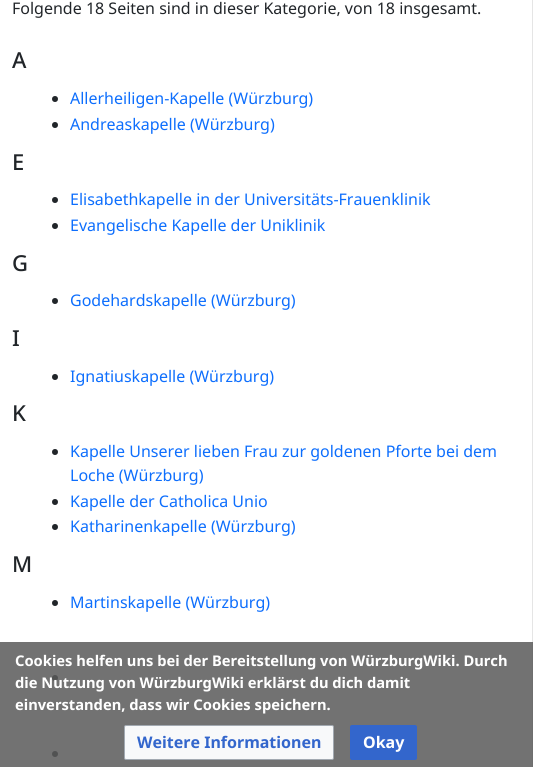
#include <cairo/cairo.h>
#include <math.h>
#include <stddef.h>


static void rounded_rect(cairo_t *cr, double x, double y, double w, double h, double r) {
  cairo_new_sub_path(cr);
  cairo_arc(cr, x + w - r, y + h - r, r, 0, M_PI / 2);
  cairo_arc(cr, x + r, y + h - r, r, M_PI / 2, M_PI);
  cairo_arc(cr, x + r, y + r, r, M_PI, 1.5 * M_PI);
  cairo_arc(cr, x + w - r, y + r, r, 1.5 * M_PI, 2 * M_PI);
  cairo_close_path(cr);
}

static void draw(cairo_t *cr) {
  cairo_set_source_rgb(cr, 1, 1, 1);
  cairo_paint(cr);
  cairo_set_source_rgb(cr, 229 / 255.0, 229 / 255.0, 229 / 255.0);
  cairo_rectangle(cr, 532, 0, 1, 767);
  cairo_fill(cr);
  cairo_set_source_rgb(cr, 33 / 255.0, 37 / 255.0, 41 / 255.0);
  cairo_arc(cr, 55, 99, 3, 0, 2 * M_PI);
  cairo_fill(cr);
  cairo_arc(cr, 55, 125, 3, 0, 2 * M_PI);
  cairo_fill(cr);
  cairo_arc(cr, 55, 200, 3, 0, 2 * M_PI);
  cairo_fill(cr);
  cairo_arc(cr, 55, 226, 3, 0, 2 * M_PI);
  cairo_fill(cr);
  cairo_arc(cr, 55, 301, 3, 0, 2 * M_PI);
  cairo_fill(cr);
  cairo_arc(cr, 55, 377, 3, 0, 2 * M_PI);
  cairo_fill(cr);
  cairo_arc(cr, 55, 452, 3, 0, 2 * M_PI);
  cairo_fill(cr);
  cairo_arc(cr, 55, 502, 3, 0, 2 * M_PI);
  cairo_fill(cr);
  cairo_arc(cr, 55, 527, 3, 0, 2 * M_PI);
  cairo_fill(cr);
  cairo_arc(cr, 55, 603, 3, 0, 2 * M_PI);
  cairo_fill(cr);
  cairo_arc(cr, 55, 678, 3, 0, 2 * M_PI);
  cairo_fill(cr);
  cairo_arc(cr, 55, 754, 3, 0, 2 * M_PI);
  cairo_fill(cr);
  cairo_set_source_rgba(cr, 90 / 255.0, 90 / 255.0, 90 / 255.0, 0.85);
  cairo_rectangle(cr, 0, 642, 533, 125);
  cairo_fill(cr);
  cairo_set_source_rgb(cr, 248 / 255.0, 249 / 255.0, 250 / 255.0);
  rounded_rect(cr, 124.5, 725.5, 209, 34, 1.5);
  cairo_fill_preserve(cr);
  cairo_set_source_rgb(cr, 162 / 255.0, 169 / 255.0, 177 / 255.0);
  cairo_set_line_width(cr, 1);
  cairo_stroke(cr);
  cairo_set_source_rgb(cr, 51 / 255.0, 102 / 255.0, 204 / 255.0);
  rounded_rect(cr, 350.5, 725.5, 66, 34, 1.5);
  cairo_fill_preserve(cr);
  cairo_stroke(cr);
  cairo_select_font_face(cr, "Noto Sans", CAIRO_FONT_SLANT_NORMAL, CAIRO_FONT_WEIGHT_NORMAL);
  cairo_set_font_size(cr, 16);
  cairo_set_source_rgb(cr, 33 / 255.0, 37 / 255.0, 41 / 255.0);
  cairo_move_to(cr, 12, 14);
  cairo_show_text(cr, "Folgende 18 Seiten sind in dieser Kategorie, von 18 insgesamt.");
  cairo_select_font_face(cr, "Noto Sans Medium", CAIRO_FONT_SLANT_NORMAL, CAIRO_FONT_WEIGHT_NORMAL);
  cairo_set_font_size(cr, 22);
  cairo_move_to(cr, 12, 68);
  cairo_show_text(cr, "A");
  cairo_select_font_face(cr, "Noto Sans", CAIRO_FONT_SLANT_NORMAL, CAIRO_FONT_WEIGHT_NORMAL);
  cairo_set_font_size(cr, 16);
  cairo_set_source_rgb(cr, 13 / 255.0, 110 / 255.0, 253 / 255.0);
  cairo_move_to(cr, 70, 104);
  cairo_show_text(cr, "Allerheiligen-Kapelle (Würzburg)");
  cairo_move_to(cr, 70, 130);
  cairo_show_text(cr, "Andreaskapelle (Würzburg)");
  cairo_select_font_face(cr, "Noto Sans Medium", CAIRO_FONT_SLANT_NORMAL, CAIRO_FONT_WEIGHT_NORMAL);
  cairo_set_font_size(cr, 22);
  cairo_set_source_rgb(cr, 33 / 255.0, 37 / 255.0, 41 / 255.0);
  cairo_move_to(cr, 12, 170);
  cairo_show_text(cr, "E");
  cairo_select_font_face(cr, "Noto Sans", CAIRO_FONT_SLANT_NORMAL, CAIRO_FONT_WEIGHT_NORMAL);
  cairo_set_font_size(cr, 16);
  cairo_set_source_rgb(cr, 13 / 255.0, 110 / 255.0, 253 / 255.0);
  cairo_move_to(cr, 70, 205);
  cairo_show_text(cr, "Elisabethkapelle in der Universitäts-Frauenklinik");
  cairo_move_to(cr, 70, 231);
  cairo_show_text(cr, "Evangelische Kapelle der Uniklinik");
  cairo_select_font_face(cr, "Noto Sans Medium", CAIRO_FONT_SLANT_NORMAL, CAIRO_FONT_WEIGHT_NORMAL);
  cairo_set_font_size(cr, 22);
  cairo_set_source_rgb(cr, 33 / 255.0, 37 / 255.0, 41 / 255.0);
  cairo_move_to(cr, 12, 271);
  cairo_show_text(cr, "G");
  cairo_select_font_face(cr, "Noto Sans", CAIRO_FONT_SLANT_NORMAL, CAIRO_FONT_WEIGHT_NORMAL);
  cairo_set_font_size(cr, 16);
  cairo_set_source_rgb(cr, 13 / 255.0, 110 / 255.0, 253 / 255.0);
  cairo_move_to(cr, 70, 306);
  cairo_show_text(cr, "Godehardskapelle (Würzburg)");
  cairo_select_font_face(cr, "Noto Sans Medium", CAIRO_FONT_SLANT_NORMAL, CAIRO_FONT_WEIGHT_NORMAL);
  cairo_set_font_size(cr, 22);
  cairo_set_source_rgb(cr, 33 / 255.0, 37 / 255.0, 41 / 255.0);
  cairo_move_to(cr, 12, 346);
  cairo_show_text(cr, "I");
  cairo_select_font_face(cr, "Noto Sans", CAIRO_FONT_SLANT_NORMAL, CAIRO_FONT_WEIGHT_NORMAL);
  cairo_set_font_size(cr, 16);
  cairo_set_source_rgb(cr, 13 / 255.0, 110 / 255.0, 253 / 255.0);
  cairo_move_to(cr, 70, 382);
  cairo_show_text(cr, "Ignatiuskapelle (Würzburg)");
  cairo_select_font_face(cr, "Noto Sans Medium", CAIRO_FONT_SLANT_NORMAL, CAIRO_FONT_WEIGHT_NORMAL);
  cairo_set_font_size(cr, 22);
  cairo_set_source_rgb(cr, 33 / 255.0, 37 / 255.0, 41 / 255.0);
  cairo_move_to(cr, 12, 421);
  cairo_show_text(cr, "K");
  cairo_select_font_face(cr, "Noto Sans", CAIRO_FONT_SLANT_NORMAL, CAIRO_FONT_WEIGHT_NORMAL);
  cairo_set_font_size(cr, 16);
  cairo_set_source_rgb(cr, 13 / 255.0, 110 / 255.0, 253 / 255.0);
  cairo_move_to(cr, 70, 457);
  cairo_show_text(cr, "Kapelle Unserer lieben Frau zur goldenen Pforte bei dem");
  cairo_move_to(cr, 70, 481);
  cairo_show_text(cr, "Loche (Würzburg)");
  cairo_move_to(cr, 70, 507);
  cairo_show_text(cr, "Kapelle der Catholica Unio");
  cairo_move_to(cr, 70, 532);
  cairo_show_text(cr, "Katharinenkapelle (Würzburg)");
  cairo_select_font_face(cr, "Noto Sans Medium", CAIRO_FONT_SLANT_NORMAL, CAIRO_FONT_WEIGHT_NORMAL);
  cairo_set_font_size(cr, 22);
  cairo_set_source_rgb(cr, 33 / 255.0, 37 / 255.0, 41 / 255.0);
  cairo_move_to(cr, 12, 572);
  cairo_show_text(cr, "M");
  cairo_select_font_face(cr, "Noto Sans", CAIRO_FONT_SLANT_NORMAL, CAIRO_FONT_WEIGHT_NORMAL);
  cairo_set_font_size(cr, 16);
  cairo_set_source_rgb(cr, 13 / 255.0, 110 / 255.0, 253 / 255.0);
  cairo_move_to(cr, 70, 608);
  cairo_show_text(cr, "Martinskapelle (Würzburg)");
  cairo_select_font_face(cr, "Noto Sans", CAIRO_FONT_SLANT_NORMAL, CAIRO_FONT_WEIGHT_BOLD);
  cairo_set_font_size(cr, 14.7);
  cairo_set_source_rgb(cr, 1, 1, 1);
  cairo_move_to(cr, 15, 666);
  cairo_show_text(cr, "Cookies helfen uns bei der Bereitstellung von WürzburgWiki. Durch");
  cairo_move_to(cr, 15, 688);
  cairo_show_text(cr, "die Nutzung von WürzburgWiki erklärst du dich damit");
  cairo_move_to(cr, 15, 710);
  cairo_show_text(cr, "einverstanden, dass wir Cookies speichern.");
  cairo_set_font_size(cr, 16);
  cairo_set_source_rgb(cr, 51 / 255.0, 102 / 255.0, 204 / 255.0);
  cairo_move_to(cr, 137, 748);
  cairo_show_text(cr, "Weitere Informationen");
  cairo_set_source_rgb(cr, 1, 1, 1);
  cairo_move_to(cr, 363, 748);
  cairo_show_text(cr, "Okay");
}

int main(void) {
  cairo_surface_t *surface = cairo_image_surface_create(CAIRO_FORMAT_RGB24, 533, 767);
  cairo_t *cr = cairo_create(surface);
  cairo_font_options_t *options = cairo_font_options_create();
  cairo_font_options_set_hint_metrics(options, CAIRO_HINT_METRICS_OFF);
  cairo_font_options_set_hint_style(options, CAIRO_HINT_STYLE_NONE);
  cairo_set_font_options(cr, options);
  cairo_set_miter_limit(cr, 4);
  draw(cr);
  cairo_surface_write_to_png(surface, "out.png");
  cairo_font_options_destroy(options);
  cairo_destroy(cr);
  cairo_surface_destroy(surface);
  return 0;
}
